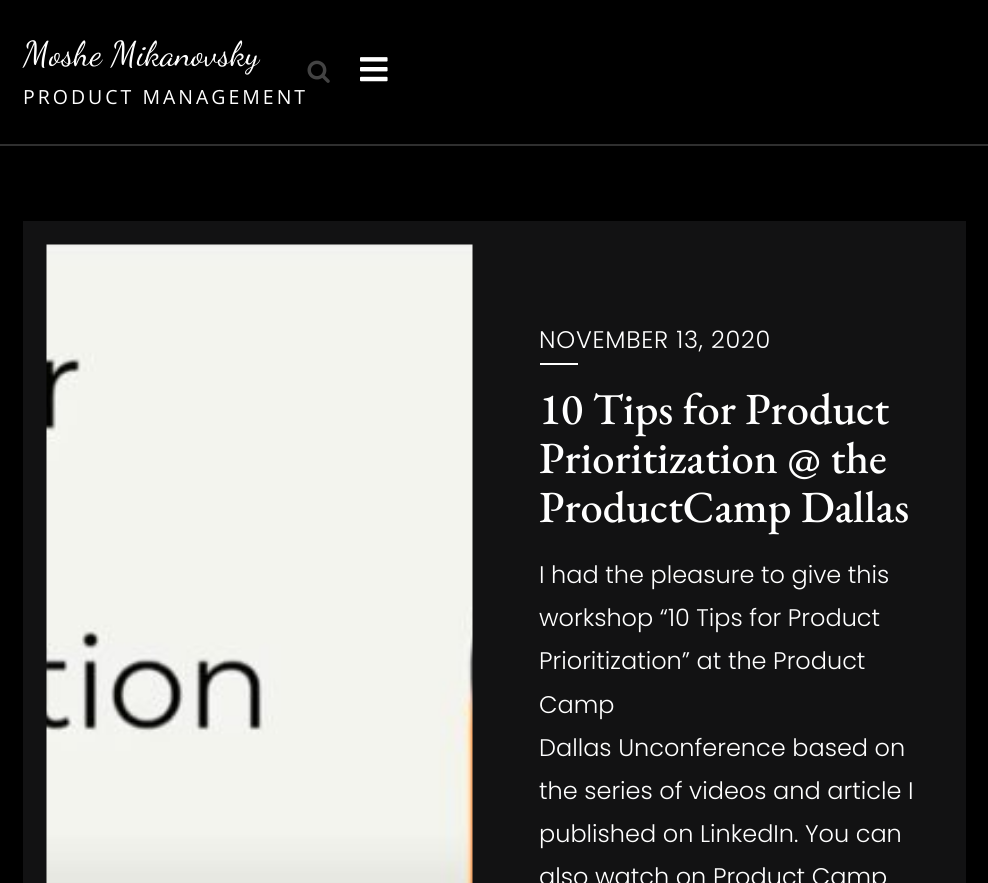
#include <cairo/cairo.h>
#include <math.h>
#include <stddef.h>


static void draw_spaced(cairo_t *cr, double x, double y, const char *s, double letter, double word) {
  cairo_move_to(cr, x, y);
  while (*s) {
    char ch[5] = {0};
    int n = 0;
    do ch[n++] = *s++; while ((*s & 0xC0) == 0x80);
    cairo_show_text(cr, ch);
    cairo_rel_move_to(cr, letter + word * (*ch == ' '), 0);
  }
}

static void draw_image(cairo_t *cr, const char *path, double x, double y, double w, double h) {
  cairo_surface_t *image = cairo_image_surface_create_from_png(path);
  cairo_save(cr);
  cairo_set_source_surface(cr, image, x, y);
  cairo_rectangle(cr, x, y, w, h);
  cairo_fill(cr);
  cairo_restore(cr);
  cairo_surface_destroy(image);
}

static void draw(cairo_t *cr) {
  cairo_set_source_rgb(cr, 0, 0, 0);
  cairo_paint(cr);
  cairo_set_source_rgb(cr, 47 / 255.0, 47 / 255.0, 47 / 255.0);
  cairo_rectangle(cr, 0, 144, 988, 2);
  cairo_fill(cr);
  draw_image(cr, "images/1.png", 307, 60, 23, 23);
  draw_image(cr, "images/2.png", 360, 57, 28, 25);
  cairo_set_source_rgb(cr, 18 / 255.0, 18 / 255.0, 19 / 255.0);
  cairo_rectangle(cr, 23, 221, 943, 662);
  cairo_fill(cr);
  draw_image(cr, "images/3.png", 46, 244, 427, 639);
  cairo_set_source_rgb(cr, 1, 1, 1);
  cairo_rectangle(cr, 540, 363, 38, 2);
  cairo_fill(cr);
  cairo_select_font_face(cr, "Dancing Script", CAIRO_FONT_SLANT_NORMAL, CAIRO_FONT_WEIGHT_NORMAL);
  cairo_set_font_size(cr, 34.5);
  cairo_move_to(cr, 23, 65);
  cairo_show_text(cr, "Moshe Mikanovsky");
  cairo_select_font_face(cr, "Open Sans", CAIRO_FONT_SLANT_NORMAL, CAIRO_FONT_WEIGHT_NORMAL);
  cairo_set_font_size(cr, 19.5);
  draw_spaced(cr, 23, 104, "PRODUCT MANAGEMENT", 3, 0);
  cairo_select_font_face(cr, "Poppins Light", CAIRO_FONT_SLANT_NORMAL, CAIRO_FONT_WEIGHT_NORMAL);
  cairo_set_font_size(cr, 24);
  draw_spaced(cr, 539, 348, "NOVEMBER 13, 2020", 0.75, 0);
  cairo_select_font_face(cr, "EB Garamond Medium", CAIRO_FONT_SLANT_NORMAL, CAIRO_FONT_WEIGHT_NORMAL);
  cairo_set_font_size(cr, 44.5);
  cairo_move_to(cr, 539, 424);
  cairo_show_text(cr, "10 Tips for Product");
  cairo_move_to(cr, 539, 473);
  cairo_show_text(cr, "Prioritization @ the");
  cairo_move_to(cr, 539, 522);
  cairo_show_text(cr, "ProductCamp Dallas");
  cairo_select_font_face(cr, "Poppins Light", CAIRO_FONT_SLANT_NORMAL, CAIRO_FONT_WEIGHT_NORMAL);
  cairo_set_font_size(cr, 24);
  cairo_move_to(cr, 539, 583);
  cairo_show_text(cr, "I had the pleasure to give this");
  cairo_move_to(cr, 539, 626);
  cairo_show_text(cr, "workshop “10 Tips for Product");
  cairo_move_to(cr, 539, 669);
  cairo_show_text(cr, "Prioritization” at the Product");
  cairo_move_to(cr, 539, 713);
  cairo_show_text(cr, "Camp");
  cairo_move_to(cr, 539, 756);
  cairo_show_text(cr, "Dallas Unconference based on");
  cairo_move_to(cr, 539, 799);
  cairo_show_text(cr, "the series of videos and article I");
  cairo_move_to(cr, 539, 842);
  cairo_show_text(cr, "published on LinkedIn. You can");
  cairo_move_to(cr, 539, 885);
  cairo_show_text(cr, "also watch on Product Camp");
}

int main(void) {
  cairo_surface_t *surface = cairo_image_surface_create(CAIRO_FORMAT_RGB24, 988, 883);
  cairo_t *cr = cairo_create(surface);
  cairo_font_options_t *options = cairo_font_options_create();
  cairo_font_options_set_hint_metrics(options, CAIRO_HINT_METRICS_OFF);
  cairo_font_options_set_hint_style(options, CAIRO_HINT_STYLE_NONE);
  cairo_set_font_options(cr, options);
  cairo_set_miter_limit(cr, 4);
  draw(cr);
  cairo_surface_write_to_png(surface, "out.png");
  cairo_font_options_destroy(options);
  cairo_destroy(cr);
  cairo_surface_destroy(surface);
  return 0;
}
